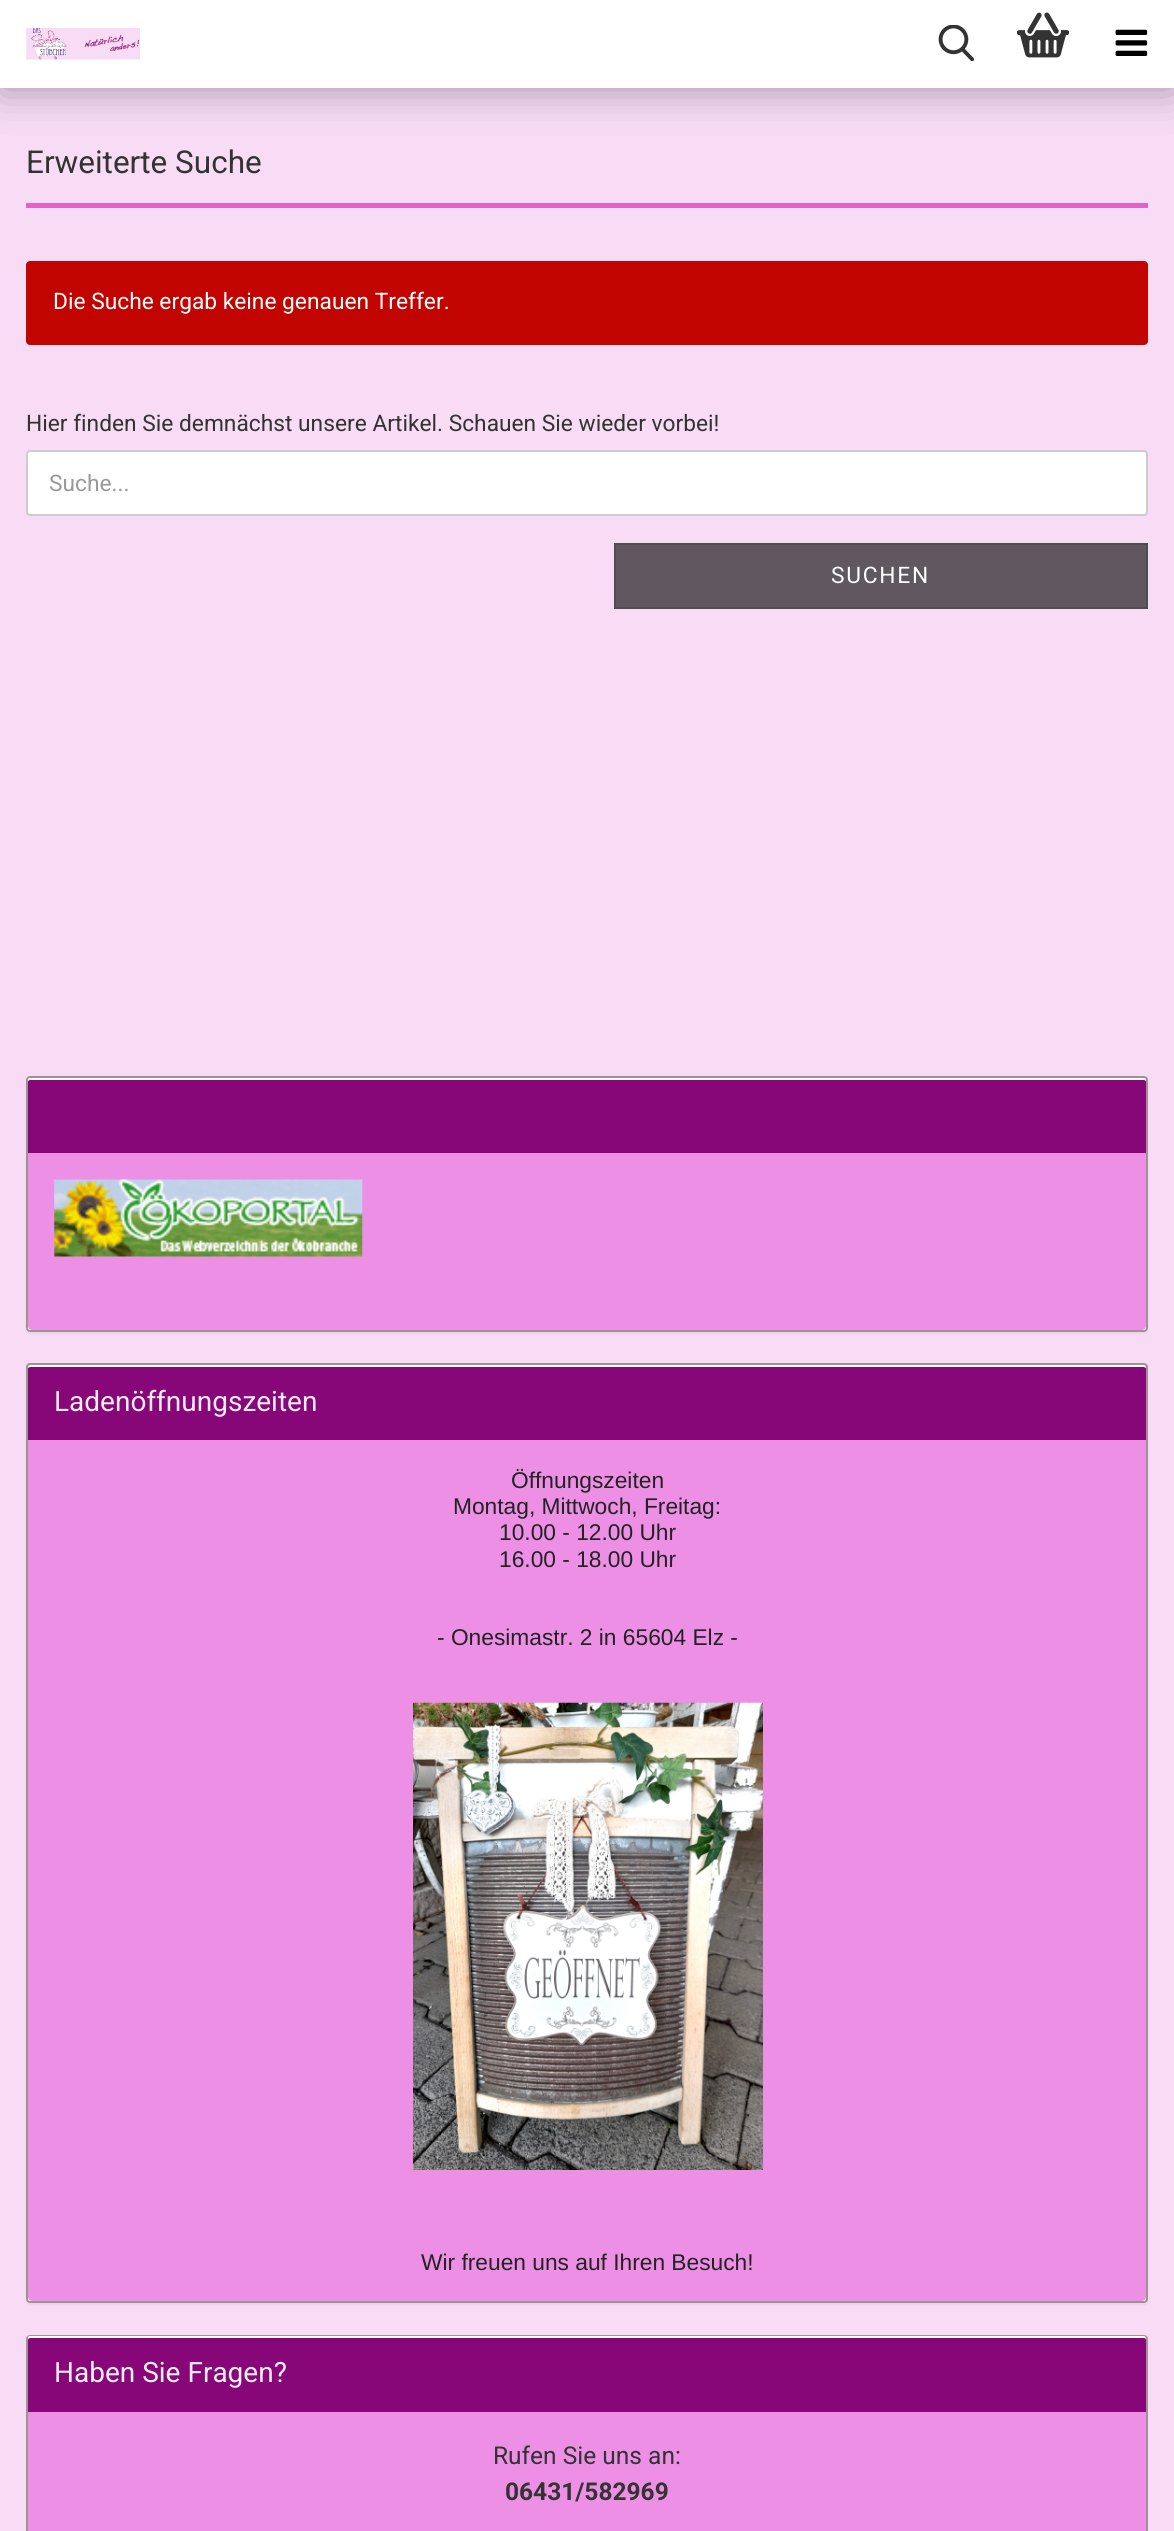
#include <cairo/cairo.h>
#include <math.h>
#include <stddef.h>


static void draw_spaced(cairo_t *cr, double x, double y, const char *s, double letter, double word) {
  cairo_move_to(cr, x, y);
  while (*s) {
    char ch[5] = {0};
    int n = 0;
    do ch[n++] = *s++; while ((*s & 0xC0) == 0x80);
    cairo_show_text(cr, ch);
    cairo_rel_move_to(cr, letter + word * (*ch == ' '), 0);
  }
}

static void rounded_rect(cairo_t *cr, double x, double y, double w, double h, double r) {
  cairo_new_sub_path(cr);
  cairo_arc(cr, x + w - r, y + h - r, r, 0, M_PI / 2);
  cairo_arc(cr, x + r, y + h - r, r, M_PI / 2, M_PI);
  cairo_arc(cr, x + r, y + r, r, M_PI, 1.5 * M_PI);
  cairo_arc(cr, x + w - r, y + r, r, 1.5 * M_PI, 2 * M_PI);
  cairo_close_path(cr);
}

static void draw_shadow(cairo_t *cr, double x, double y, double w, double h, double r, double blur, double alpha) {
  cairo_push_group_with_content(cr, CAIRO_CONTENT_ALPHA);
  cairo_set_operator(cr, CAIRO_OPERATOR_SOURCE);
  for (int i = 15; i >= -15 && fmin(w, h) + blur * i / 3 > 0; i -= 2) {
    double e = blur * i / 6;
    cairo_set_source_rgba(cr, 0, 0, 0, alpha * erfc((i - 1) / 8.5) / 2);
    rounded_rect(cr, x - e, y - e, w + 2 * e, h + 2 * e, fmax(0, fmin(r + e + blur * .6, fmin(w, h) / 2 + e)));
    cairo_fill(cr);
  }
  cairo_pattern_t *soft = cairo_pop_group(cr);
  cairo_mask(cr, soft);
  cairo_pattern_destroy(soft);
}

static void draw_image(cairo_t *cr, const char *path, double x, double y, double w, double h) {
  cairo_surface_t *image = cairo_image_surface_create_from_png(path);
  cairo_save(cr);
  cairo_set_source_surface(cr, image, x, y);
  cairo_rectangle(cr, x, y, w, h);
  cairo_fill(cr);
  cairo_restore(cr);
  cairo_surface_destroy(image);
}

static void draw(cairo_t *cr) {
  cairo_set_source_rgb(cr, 248 / 255.0, 220 / 255.0, 246 / 255.0);
  cairo_paint(cr);
  cairo_set_source_rgb(cr, 0, 0, 0);
  draw_shadow(cr, 0, 0, 1174, 88, 0, 22, 0.35);
  cairo_set_source_rgb(cr, 1, 1, 1);
  cairo_rectangle(cr, 0, 0, 1174, 88);
  cairo_fill(cr);
  draw_image(cr, "images/1.png", 26, 28, 114, 32);
  draw_image(cr, "images/2.png", 938, 25, 37, 36);
  draw_image(cr, "images/3.png", 1017, 12, 52, 46);
  draw_image(cr, "images/4.png", 1115, 29, 33, 27);
  cairo_set_source_rgb(cr, 225 / 255.0, 99 / 255.0, 199 / 255.0);
  cairo_rectangle(cr, 26, 203, 1122, 5);
  cairo_fill(cr);
  cairo_set_source_rgb(cr, 194 / 255.0, 4 / 255.0, 0);
  rounded_rect(cr, 26, 261, 1122, 84, 4);
  cairo_fill(cr);
  cairo_set_source_rgb(cr, 1, 1, 1);
  rounded_rect(cr, 27, 451, 1120, 64, 3);
  cairo_fill_preserve(cr);
  cairo_set_source_rgb(cr, 204 / 255.0, 204 / 255.0, 204 / 255.0);
  cairo_stroke(cr);
  cairo_set_source_rgb(cr, 96 / 255.0, 87 / 255.0, 95 / 255.0);
  cairo_rectangle(cr, 615, 544, 532, 64);
  cairo_fill_preserve(cr);
  cairo_set_source_rgb(cr, 83 / 255.0, 75 / 255.0, 82 / 255.0);
  cairo_stroke(cr);
  cairo_set_source_rgb(cr, 0, 0, 0);
  draw_shadow(cr, 26, 1078, 1122, 256, 4, 1, 0.05);
  cairo_set_source_rgb(cr, 1, 1, 1);
  rounded_rect(cr, 27, 1077, 1120, 254, 3);
  cairo_fill_preserve(cr);
  cairo_set_source_rgb(cr, 159 / 255.0, 146 / 255.0, 146 / 255.0);
  cairo_stroke(cr);
  cairo_set_source_rgb(cr, 136 / 255.0, 7 / 255.0, 120 / 255.0);
  cairo_new_path(cr);
  cairo_move_to(cr, 30, 1078);
  cairo_line_to(cr, 1144, 1078);
  cairo_curve_to(cr, 1145, 1078, 1146, 1079, 1146, 1080);
  cairo_line_to(cr, 1146, 1153);
  cairo_line_to(cr, 28, 1153);
  cairo_line_to(cr, 28, 1080);
  cairo_curve_to(cr, 28, 1079, 29, 1078, 30, 1078);
  cairo_close_path(cr);
  cairo_fill(cr);
  cairo_set_source_rgb(cr, 1, 1, 1);
  cairo_new_path(cr);
  cairo_move_to(cr, 30, 1080);
  cairo_line_to(cr, 1144, 1080);
  cairo_curve_to(cr, 1145, 1080, 1146, 1081, 1146, 1082);
  cairo_curve_to(cr, 1146, 1080, 1146, 1078, 1144, 1078);
  cairo_line_to(cr, 29, 1078);
  cairo_line_to(cr, 28, 1079);
  cairo_line_to(cr, 28, 1082);
  cairo_curve_to(cr, 28, 1081, 29, 1080, 30, 1080);
  cairo_close_path(cr);
  cairo_fill(cr);
  cairo_set_source_rgb(cr, 237 / 255.0, 143 / 255.0, 229 / 255.0);
  cairo_new_path(cr);
  cairo_move_to(cr, 28, 1153);
  cairo_line_to(cr, 1146, 1153);
  cairo_line_to(cr, 1146, 1326);
  cairo_curve_to(cr, 1146, 1328, 1144, 1330, 1142, 1330);
  cairo_line_to(cr, 32, 1330);
  cairo_curve_to(cr, 30, 1330, 28, 1328, 28, 1326);
  cairo_close_path(cr);
  cairo_fill(cr);
  draw_image(cr, "images/5.png", 54, 1179, 309, 78);
  cairo_set_source_rgb(cr, 0, 0, 0);
  draw_shadow(cr, 26, 1365, 1122, 940, 4, 1, 0.05);
  cairo_set_source_rgb(cr, 1, 1, 1);
  rounded_rect(cr, 27, 1364, 1120, 938, 3);
  cairo_fill_preserve(cr);
  cairo_set_source_rgb(cr, 159 / 255.0, 146 / 255.0, 146 / 255.0);
  cairo_stroke(cr);
  cairo_set_source_rgb(cr, 136 / 255.0, 7 / 255.0, 120 / 255.0);
  cairo_new_path(cr);
  cairo_move_to(cr, 30, 1365);
  cairo_line_to(cr, 1144, 1365);
  cairo_curve_to(cr, 1145, 1365, 1146, 1366, 1146, 1367);
  cairo_line_to(cr, 1146, 1440);
  cairo_line_to(cr, 28, 1440);
  cairo_line_to(cr, 28, 1367);
  cairo_curve_to(cr, 28, 1366, 29, 1365, 30, 1365);
  cairo_close_path(cr);
  cairo_fill(cr);
  cairo_set_source_rgb(cr, 1, 1, 1);
  cairo_new_path(cr);
  cairo_move_to(cr, 30, 1367);
  cairo_line_to(cr, 1144, 1367);
  cairo_line_to(cr, 1146, 1368);
  cairo_line_to(cr, 1146, 1367);
  cairo_curve_to(cr, 1146, 1366, 1145, 1365, 1144, 1365);
  cairo_line_to(cr, 30, 1365);
  cairo_curve_to(cr, 29, 1365, 28, 1366, 28, 1367);
  cairo_line_to(cr, 28, 1368);
  cairo_close_path(cr);
  cairo_fill(cr);
  cairo_set_source_rgb(cr, 237 / 255.0, 143 / 255.0, 229 / 255.0);
  cairo_new_path(cr);
  cairo_move_to(cr, 28, 1440);
  cairo_line_to(cr, 1146, 1440);
  cairo_line_to(cr, 1146, 2297);
  cairo_curve_to(cr, 1146, 2299, 1144, 2301, 1142, 2301);
  cairo_line_to(cr, 32, 2301);
  cairo_curve_to(cr, 30, 2301, 28, 2299, 28, 2297);
  cairo_close_path(cr);
  cairo_fill(cr);
  draw_image(cr, "images/6.png", 413, 1702, 350, 468);
  rounded_rect(cr, 27, 2336, 1120, 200, 3);
  cairo_set_source_rgb(cr, 159 / 255.0, 146 / 255.0, 146 / 255.0);
  cairo_stroke(cr);
  cairo_set_source_rgb(cr, 136 / 255.0, 7 / 255.0, 120 / 255.0);
  cairo_new_path(cr);
  cairo_move_to(cr, 30, 2336);
  cairo_line_to(cr, 1144, 2336);
  cairo_curve_to(cr, 1145, 2336, 1146, 2337, 1146, 2338);
  cairo_line_to(cr, 1146, 2412);
  cairo_line_to(cr, 28, 2412);
  cairo_line_to(cr, 28, 2338);
  cairo_curve_to(cr, 28, 2337, 29, 2336, 30, 2336);
  cairo_close_path(cr);
  cairo_fill(cr);
  cairo_set_source_rgb(cr, 1, 1, 1);
  cairo_new_path(cr);
  cairo_move_to(cr, 30, 2338);
  cairo_line_to(cr, 1144, 2338);
  cairo_curve_to(cr, 1145, 2338, 1146, 2339, 1146, 2340);
  cairo_curve_to(cr, 1146, 2338, 1146, 2336, 1144, 2336);
  cairo_line_to(cr, 29, 2336);
  cairo_line_to(cr, 28, 2337);
  cairo_line_to(cr, 28, 2340);
  cairo_curve_to(cr, 28, 2339, 29, 2338, 30, 2338);
  cairo_close_path(cr);
  cairo_fill(cr);
  cairo_set_source_rgb(cr, 237 / 255.0, 143 / 255.0, 229 / 255.0);
  cairo_rectangle(cr, 28, 2412, 1118, 119);
  cairo_fill(cr);
  cairo_select_font_face(cr, "Roboto", CAIRO_FONT_SLANT_NORMAL, CAIRO_FONT_WEIGHT_NORMAL);
  cairo_set_font_size(cr, 31.5);
  cairo_set_source_rgb(cr, 51 / 255.0, 51 / 255.0, 51 / 255.0);
  cairo_move_to(cr, 26, 173);
  cairo_show_text(cr, "Erweiterte Suche");
  cairo_set_font_size(cr, 22.75);
  cairo_set_source_rgb(cr, 1, 1, 1);
  cairo_move_to(cr, 53, 309);
  cairo_show_text(cr, "Die Suche ergab keine genauen Treffer.");
  cairo_set_source_rgb(cr, 51 / 255.0, 51 / 255.0, 51 / 255.0);
  cairo_move_to(cr, 26, 431);
  cairo_show_text(cr, "Hier finden Sie demnächst unsere Artikel. Schauen Sie wieder vorbei!");
  cairo_set_source_rgb(cr, 153 / 255.0, 153 / 255.0, 153 / 255.0);
  cairo_move_to(cr, 49, 491);
  cairo_show_text(cr, "Suche...");
  cairo_set_source_rgb(cr, 1, 1, 1);
  draw_spaced(cr, 831, 583, "SUCHEN", 1.75, 0);
  cairo_set_font_size(cr, 28);
  cairo_set_source_rgb(cr, 244 / 255.0, 235 / 255.0, 243 / 255.0);
  cairo_move_to(cr, 54, 1411);
  cairo_show_text(cr, "Ladenöffnungszeiten");
  cairo_select_font_face(cr, "Liberation Sans", CAIRO_FONT_SLANT_NORMAL, CAIRO_FONT_WEIGHT_NORMAL);
  cairo_set_font_size(cr, 22.75);
  cairo_set_source_rgb(cr, 34 / 255.0, 34 / 255.0, 34 / 255.0);
  cairo_move_to(cr, 511, 1488);
  cairo_show_text(cr, "Öffnungszeiten");
  cairo_move_to(cr, 453, 1514);
  cairo_show_text(cr, "Montag, Mittwoch, Freitag:");
  cairo_move_to(cr, 499, 1540);
  cairo_show_text(cr, "10.00 - 12.00 Uhr");
  cairo_move_to(cr, 499, 1567);
  cairo_show_text(cr, "16.00 - 18.00 Uhr");
  cairo_move_to(cr, 437, 1645);
  cairo_show_text(cr, "- Onesimastr. 2 in 65604 Elz -");
  cairo_move_to(cr, 421, 2270);
  cairo_show_text(cr, "Wir freuen uns auf Ihren Besuch!");
  cairo_select_font_face(cr, "Roboto", CAIRO_FONT_SLANT_NORMAL, CAIRO_FONT_WEIGHT_NORMAL);
  cairo_set_font_size(cr, 28);
  cairo_set_source_rgb(cr, 244 / 255.0, 235 / 255.0, 243 / 255.0);
  cairo_move_to(cr, 54, 2382);
  cairo_show_text(cr, "Haben Sie Fragen?");
  cairo_set_font_size(cr, 24.5);
  cairo_set_source_rgb(cr, 51 / 255.0, 51 / 255.0, 51 / 255.0);
  cairo_move_to(cr, 493, 2464);
  cairo_show_text(cr, "Rufen Sie uns an:");
  cairo_select_font_face(cr, "Roboto", CAIRO_FONT_SLANT_NORMAL, CAIRO_FONT_WEIGHT_BOLD);
  cairo_move_to(cr, 505, 2500);
  cairo_show_text(cr, "06431/582969");
}

int main(void) {
  cairo_surface_t *surface = cairo_image_surface_create(CAIRO_FORMAT_RGB24, 1174, 2531);
  cairo_t *cr = cairo_create(surface);
  cairo_font_options_t *options = cairo_font_options_create();
  cairo_font_options_set_hint_metrics(options, CAIRO_HINT_METRICS_OFF);
  cairo_font_options_set_hint_style(options, CAIRO_HINT_STYLE_NONE);
  cairo_set_font_options(cr, options);
  cairo_set_miter_limit(cr, 4);
  draw(cr);
  cairo_surface_write_to_png(surface, "out.png");
  cairo_font_options_destroy(options);
  cairo_destroy(cr);
  cairo_surface_destroy(surface);
  return 0;
}
